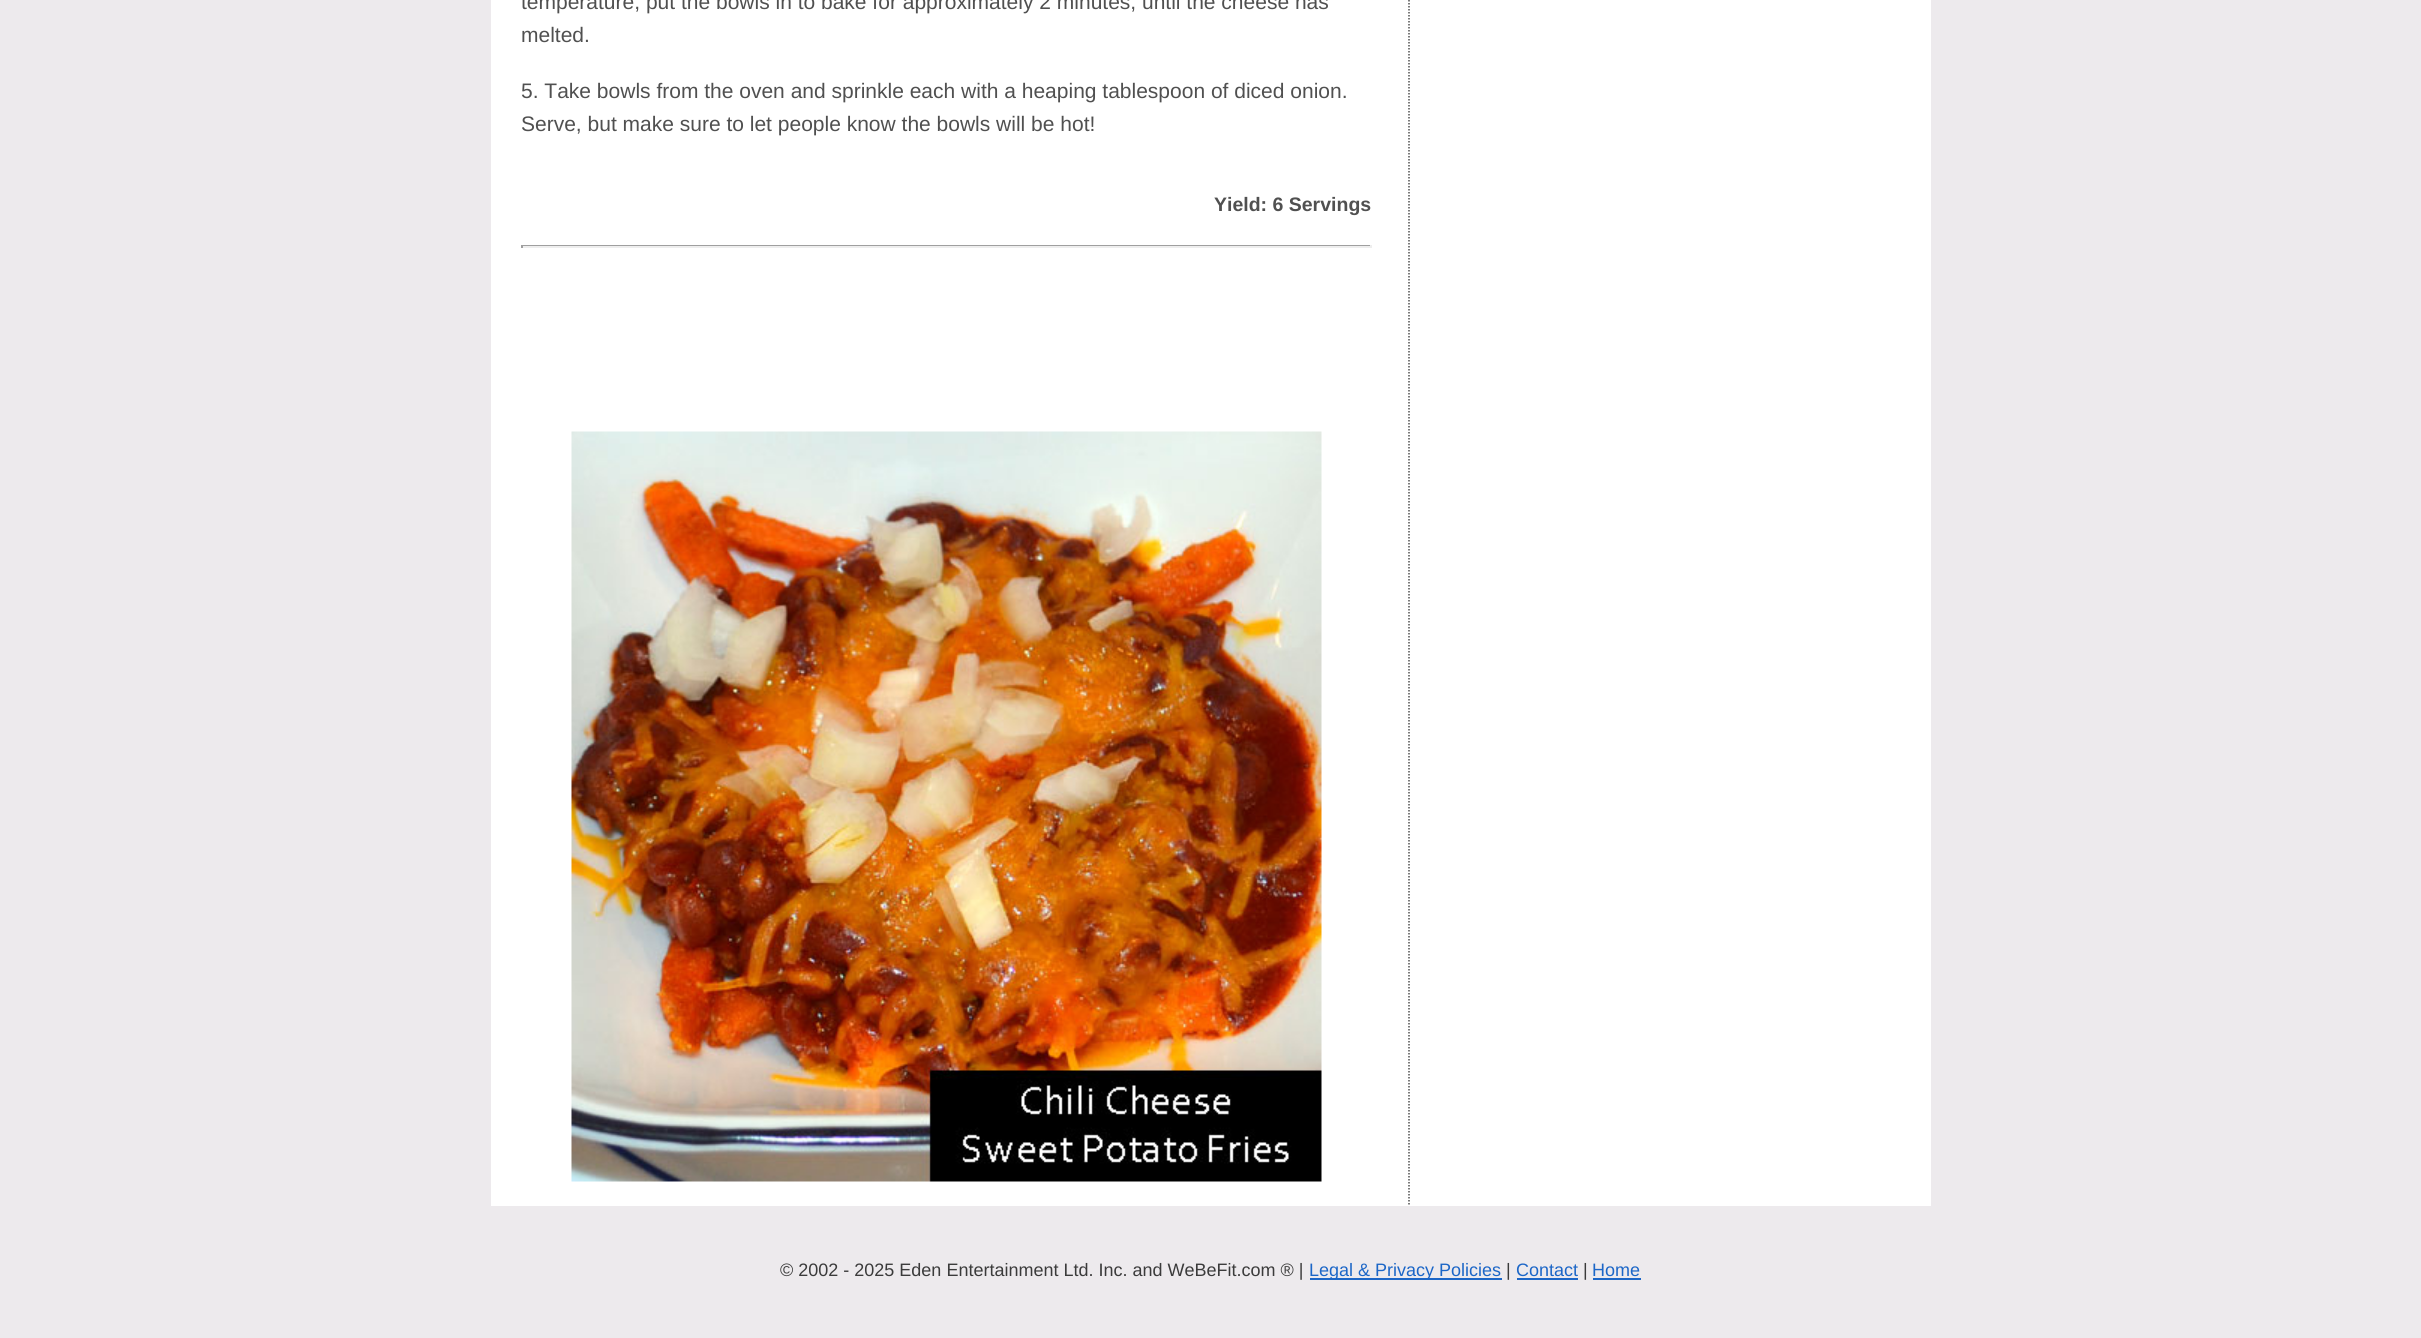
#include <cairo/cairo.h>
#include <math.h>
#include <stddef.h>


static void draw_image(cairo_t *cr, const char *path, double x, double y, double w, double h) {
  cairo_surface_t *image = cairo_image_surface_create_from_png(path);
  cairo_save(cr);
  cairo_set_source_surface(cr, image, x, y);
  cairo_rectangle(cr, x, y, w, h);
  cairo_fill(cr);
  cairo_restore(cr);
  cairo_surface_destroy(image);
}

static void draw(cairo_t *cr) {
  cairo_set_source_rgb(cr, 237 / 255.0, 234 / 255.0, 237 / 255.0);
  cairo_paint(cr);
  cairo_set_source_rgb(cr, 1, 1, 1);
  cairo_rectangle(cr, 491, 0, 1440, 1206);
  cairo_fill(cr);
  cairo_new_path(cr);
  cairo_move_to(cr, 1409, -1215);
  cairo_line_to(cr, 1409, 1206);
  cairo_set_source_rgb(cr, 80 / 255.0, 80 / 255.0, 80 / 255.0);
  cairo_set_line_width(cr, 1.5);
  cairo_set_dash(cr, (double[]){1.5, 1.5}, 2, 0);
  cairo_stroke(cr);
  cairo_set_source_rgb(cr, 159 / 255.0, 159 / 255.0, 159 / 255.0);
  cairo_rectangle(cr, 521, 245, 850, 1);
  cairo_fill(cr);
  cairo_set_source_rgb(cr, 238 / 255.0, 238 / 255.0, 238 / 255.0);
  cairo_rectangle(cr, 1370, 245, 2, 3);
  cairo_fill(cr);
  cairo_rectangle(cr, 521, 246, 850, 2);
  cairo_fill(cr);
  cairo_set_source_rgb(cr, 159 / 255.0, 159 / 255.0, 159 / 255.0);
  cairo_rectangle(cr, 521, 245, 2, 3);
  cairo_fill(cr);
  draw_image(cr, "images/1.png", 571, 431, 751, 751);
  cairo_set_source_rgb(cr, 28 / 255.0, 102 / 255.0, 199 / 255.0);
  cairo_rectangle(cr, 1310, 1278, 192, 2);
  cairo_fill(cr);
  cairo_rectangle(cr, 1517, 1278, 61, 2);
  cairo_fill(cr);
  cairo_rectangle(cr, 1593, 1278, 48, 2);
  cairo_fill(cr);
  cairo_select_font_face(cr, "Liberation Sans", CAIRO_FONT_SLANT_NORMAL, CAIRO_FONT_WEIGHT_NORMAL);
  cairo_set_font_size(cr, 21);
  cairo_set_source_rgb(cr, 80 / 255.0, 80 / 255.0, 80 / 255.0);
  cairo_move_to(cr, 521, 9);
  cairo_show_text(cr, "temperature, put the bowls in to bake for approximately 2 minutes, until the cheese has");
  cairo_move_to(cr, 521, 42);
  cairo_show_text(cr, "melted.");
  cairo_move_to(cr, 521, 98);
  cairo_show_text(cr, "5. Take bowls from the oven and sprinkle each with a heaping tablespoon of diced onion.");
  cairo_move_to(cr, 521, 131);
  cairo_show_text(cr, "Serve, but make sure to let people know the bowls will be hot!");
  cairo_select_font_face(cr, "Liberation Sans", CAIRO_FONT_SLANT_NORMAL, CAIRO_FONT_WEIGHT_BOLD);
  cairo_set_font_size(cr, 19.5);
  cairo_move_to(cr, 1214, 211);
  cairo_show_text(cr, "Yield: 6 Servings");
  cairo_select_font_face(cr, "Liberation Sans", CAIRO_FONT_SLANT_NORMAL, CAIRO_FONT_WEIGHT_NORMAL);
  cairo_set_font_size(cr, 18);
  cairo_set_source_rgb(cr, 59 / 255.0, 59 / 255.0, 59 / 255.0);
  cairo_move_to(cr, 780, 1276);
  cairo_show_text(cr, "© 2002 - 2025 Eden Entertainment Ltd. Inc. and WeBeFit.com ® |");
  cairo_set_source_rgb(cr, 28 / 255.0, 102 / 255.0, 199 / 255.0);
  cairo_move_to(cr, 1309, 1276);
  cairo_show_text(cr, "Legal & Privacy Policies");
  cairo_set_source_rgb(cr, 59 / 255.0, 59 / 255.0, 59 / 255.0);
  cairo_move_to(cr, 1506, 1276);
  cairo_show_text(cr, "|");
  cairo_set_source_rgb(cr, 28 / 255.0, 102 / 255.0, 199 / 255.0);
  cairo_move_to(cr, 1516, 1276);
  cairo_show_text(cr, "Contact");
  cairo_set_source_rgb(cr, 59 / 255.0, 59 / 255.0, 59 / 255.0);
  cairo_move_to(cr, 1583, 1276);
  cairo_show_text(cr, "|");
  cairo_set_source_rgb(cr, 28 / 255.0, 102 / 255.0, 199 / 255.0);
  cairo_move_to(cr, 1592, 1276);
  cairo_show_text(cr, "Home");
}

int main(void) {
  cairo_surface_t *surface = cairo_image_surface_create(CAIRO_FORMAT_RGB24, 2421, 1338);
  cairo_t *cr = cairo_create(surface);
  cairo_font_options_t *options = cairo_font_options_create();
  cairo_font_options_set_hint_metrics(options, CAIRO_HINT_METRICS_OFF);
  cairo_font_options_set_hint_style(options, CAIRO_HINT_STYLE_NONE);
  cairo_set_font_options(cr, options);
  cairo_set_miter_limit(cr, 4);
  draw(cr);
  cairo_surface_write_to_png(surface, "out.png");
  cairo_font_options_destroy(options);
  cairo_destroy(cr);
  cairo_surface_destroy(surface);
  return 0;
}
